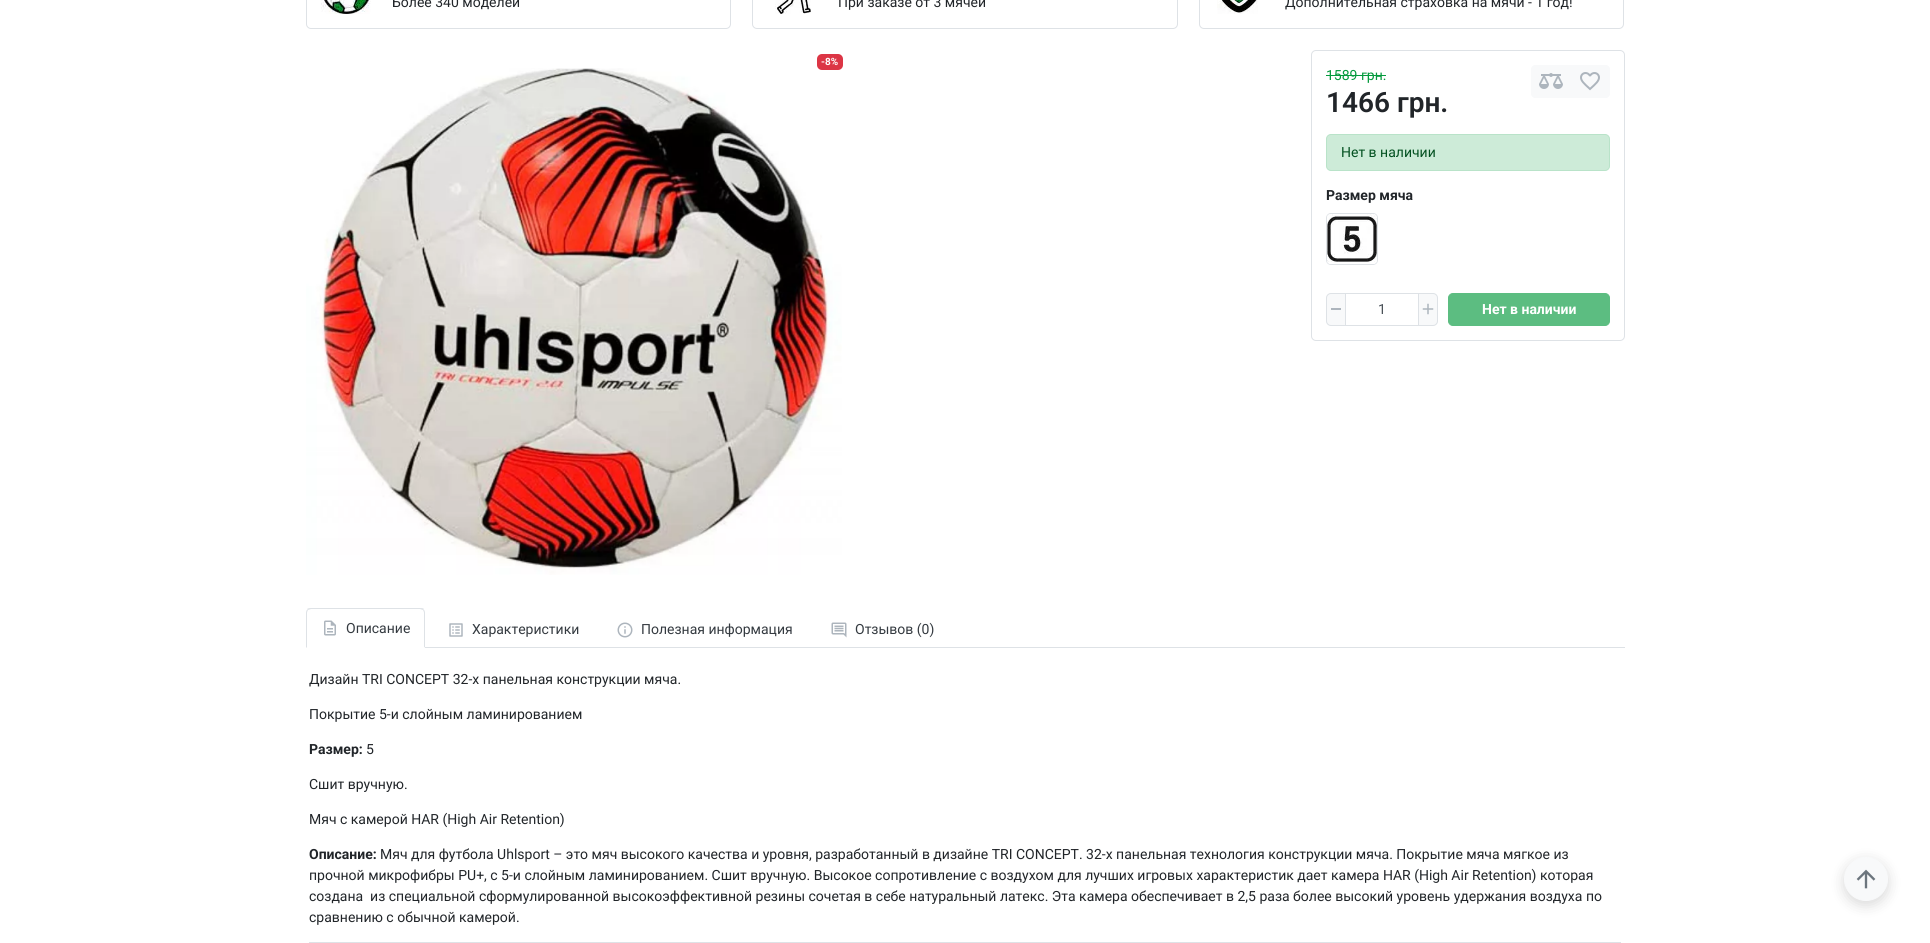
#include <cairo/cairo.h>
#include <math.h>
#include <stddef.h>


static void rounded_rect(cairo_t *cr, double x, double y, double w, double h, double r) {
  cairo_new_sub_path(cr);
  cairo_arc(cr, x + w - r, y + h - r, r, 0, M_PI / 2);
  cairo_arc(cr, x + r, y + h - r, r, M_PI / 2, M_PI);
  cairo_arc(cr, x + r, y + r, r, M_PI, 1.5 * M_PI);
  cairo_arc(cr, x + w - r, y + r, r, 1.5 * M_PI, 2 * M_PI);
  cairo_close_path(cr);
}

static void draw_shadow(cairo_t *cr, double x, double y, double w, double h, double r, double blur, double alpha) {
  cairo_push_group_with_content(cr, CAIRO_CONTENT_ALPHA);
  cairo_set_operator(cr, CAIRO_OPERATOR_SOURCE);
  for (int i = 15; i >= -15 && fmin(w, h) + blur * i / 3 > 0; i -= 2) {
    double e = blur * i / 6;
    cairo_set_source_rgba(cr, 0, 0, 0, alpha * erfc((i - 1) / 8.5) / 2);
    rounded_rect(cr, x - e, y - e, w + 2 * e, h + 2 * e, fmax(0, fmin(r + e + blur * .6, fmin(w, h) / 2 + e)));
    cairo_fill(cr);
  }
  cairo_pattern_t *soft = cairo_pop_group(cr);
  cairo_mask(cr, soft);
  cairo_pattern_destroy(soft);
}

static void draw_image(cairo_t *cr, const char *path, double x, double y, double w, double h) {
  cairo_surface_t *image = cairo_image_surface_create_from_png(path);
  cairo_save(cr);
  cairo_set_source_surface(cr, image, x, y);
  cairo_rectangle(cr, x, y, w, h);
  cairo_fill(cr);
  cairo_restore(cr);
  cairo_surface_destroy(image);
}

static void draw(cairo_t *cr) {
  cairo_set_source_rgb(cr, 1, 1, 1);
  cairo_paint(cr);
  rounded_rect(cr, 306.5, -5.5, 424, 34, 4.5);
  cairo_set_source_rgb(cr, 222 / 255.0, 226 / 255.0, 230 / 255.0);
  cairo_set_line_width(cr, 1);
  cairo_stroke(cr);
  draw_image(cr, "images/1.png", 321, 0, 50, 14);
  rounded_rect(cr, 752.5, -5.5, 425, 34, 4.5);
  cairo_stroke(cr);
  draw_image(cr, "images/2.png", 775, 0, 36, 14);
  rounded_rect(cr, 1199.5, -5.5, 424, 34, 4.5);
  cairo_stroke(cr);
  draw_image(cr, "images/3.png", 1217, 0, 41, 14);
  draw_image(cr, "images/4.png", 306, 68, 536, 507);
  cairo_set_source_rgb(cr, 220 / 255.0, 53 / 255.0, 69 / 255.0);
  rounded_rect(cr, 817, 54, 26, 16, 5);
  cairo_fill(cr);
  rounded_rect(cr, 1311.5, 50.5, 313, 290, 4.5);
  cairo_set_source_rgb(cr, 222 / 255.0, 226 / 255.0, 230 / 255.0);
  cairo_stroke(cr);
  cairo_set_source_rgb(cr, 4 / 255.0, 154 / 255.0, 61 / 255.0);
  cairo_rectangle(cr, 1326, 75, 60, 1);
  cairo_fill(cr);
  cairo_set_source_rgb(cr, 248 / 255.0, 249 / 255.0, 250 / 255.0);
  cairo_new_path(cr);
  cairo_move_to(cr, 1535, 65);
  cairo_line_to(cr, 1571, 65);
  cairo_line_to(cr, 1571, 98);
  cairo_line_to(cr, 1535, 98);
  cairo_curve_to(cr, 1533, 98, 1531, 96, 1531, 94);
  cairo_line_to(cr, 1531, 69);
  cairo_curve_to(cr, 1531, 67, 1533, 65, 1535, 65);
  cairo_close_path(cr);
  cairo_fill(cr);
  draw_image(cr, "images/5.png", 1539, 73, 24, 16);
  cairo_new_path(cr);
  cairo_move_to(cr, 1570, 65);
  cairo_line_to(cr, 1606, 65);
  cairo_curve_to(cr, 1608, 65, 1610, 67, 1610, 69);
  cairo_line_to(cr, 1610, 94);
  cairo_curve_to(cr, 1610, 96, 1608, 98, 1606, 98);
  cairo_line_to(cr, 1570, 98);
  cairo_close_path(cr);
  cairo_fill(cr);
  draw_image(cr, "images/6.png", 1580, 72, 20, 19);
  cairo_set_source_rgb(cr, 205 / 255.0, 235 / 255.0, 216 / 255.0);
  rounded_rect(cr, 1326.5, 134.5, 283, 36, 4.5);
  cairo_fill_preserve(cr);
  cairo_set_source_rgb(cr, 185 / 255.0, 227 / 255.0, 201 / 255.0);
  cairo_stroke(cr);
  rounded_rect(cr, 1326.5, 213.5, 51, 51, 4.5);
  cairo_set_source_rgb(cr, 222 / 255.0, 226 / 255.0, 230 / 255.0);
  cairo_stroke(cr);
  draw_image(cr, "images/7.png", 1327, 214, 50, 50);
  cairo_rectangle(cr, 1345.5, 293.5, 73, 32);
  cairo_stroke(cr);
  cairo_set_source_rgb(cr, 248 / 255.0, 249 / 255.0, 250 / 255.0);
  cairo_new_path(cr);
  cairo_move_to(cr, 1331, 293.5);
  cairo_line_to(cr, 1345.5, 293.5);
  cairo_line_to(cr, 1345.5, 325.5);
  cairo_line_to(cr, 1331, 325.5);
  cairo_curve_to(cr, 1328.5, 325.5, 1326.5, 323.5, 1326.5, 321);
  cairo_line_to(cr, 1326.5, 298);
  cairo_curve_to(cr, 1326.5, 295.5, 1328.5, 293.5, 1331, 293.5);
  cairo_close_path(cr);
  cairo_fill_preserve(cr);
  cairo_set_source_rgb(cr, 222 / 255.0, 226 / 255.0, 230 / 255.0);
  cairo_stroke(cr);
  cairo_set_source_rgb(cr, 173 / 255.0, 181 / 255.0, 189 / 255.0);
  cairo_rectangle(cr, 1331, 308, 10, 2);
  cairo_fill(cr);
  cairo_set_source_rgb(cr, 248 / 255.0, 249 / 255.0, 250 / 255.0);
  cairo_new_path(cr);
  cairo_move_to(cr, 1418.5, 293.5);
  cairo_line_to(cr, 1433, 293.5);
  cairo_curve_to(cr, 1435.5, 293.5, 1437.5, 295.5, 1437.5, 298);
  cairo_line_to(cr, 1437.5, 321);
  cairo_curve_to(cr, 1437.5, 323.5, 1435.5, 325.5, 1433, 325.5);
  cairo_line_to(cr, 1418.5, 325.5);
  cairo_close_path(cr);
  cairo_fill_preserve(cr);
  cairo_set_source_rgb(cr, 222 / 255.0, 226 / 255.0, 230 / 255.0);
  cairo_stroke(cr);
  draw_image(cr, "images/8.png", 1422, 303, 12, 12);
  cairo_set_source_rgb(cr, 92 / 255.0, 189 / 255.0, 129 / 255.0);
  rounded_rect(cr, 1448.5, 293.5, 161, 32, 4.5);
  cairo_fill_preserve(cr);
  cairo_stroke(cr);
  cairo_set_source_rgb(cr, 222 / 255.0, 226 / 255.0, 230 / 255.0);
  cairo_rectangle(cr, 425, 647, 1200, 1);
  cairo_fill(cr);
  cairo_new_path(cr);
  cairo_move_to(cr, 311, 608);
  cairo_curve_to(cr, 310, 608, 308, 608, 307, 609);
  cairo_line_to(cr, 308, 610);
  cairo_line_to(cr, 311, 609);
  cairo_line_to(cr, 420, 609);
  cairo_line_to(cr, 423, 610);
  cairo_line_to(cr, 424, 609);
  cairo_curve_to(cr, 423, 608, 422, 608, 420, 608);
  cairo_close_path(cr);
  cairo_fill(cr);
  cairo_new_path(cr);
  cairo_move_to(cr, 425, 648);
  cairo_line_to(cr, 425, 613);
  cairo_curve_to(cr, 425, 611.5, 424.5, 610, 423.5, 609.5);
  cairo_line_to(cr, 423, 610);
  cairo_curve_to(cr, 423.5, 611, 424, 612, 424, 613);
  cairo_line_to(cr, 424, 647);
  cairo_close_path(cr);
  cairo_fill(cr);
  cairo_set_source_rgb(cr, 1, 1, 1);
  cairo_new_path(cr);
  cairo_move_to(cr, 425, 648);
  cairo_line_to(cr, 424, 647);
  cairo_line_to(cr, 307, 647);
  cairo_line_to(cr, 306, 648);
  cairo_close_path(cr);
  cairo_fill(cr);
  cairo_set_source_rgb(cr, 222 / 255.0, 226 / 255.0, 230 / 255.0);
  cairo_new_path(cr);
  cairo_move_to(cr, 306, 648);
  cairo_line_to(cr, 307, 647);
  cairo_line_to(cr, 307, 613);
  cairo_curve_to(cr, 307, 612, 307.5, 611, 308, 610);
  cairo_line_to(cr, 307.5, 609.5);
  cairo_curve_to(cr, 306.5, 610, 306, 611.5, 306, 613);
  cairo_close_path(cr);
  cairo_fill(cr);
  draw_image(cr, "images/9.png", 324, 620, 12, 16);
  draw_image(cr, "images/10.png", 449, 623, 14, 14);
  draw_image(cr, "images/11.png", 617, 622, 16, 16);
  draw_image(cr, "images/12.png", 831, 622, 16, 16);
  cairo_rectangle(cr, 309, 942, 1312, 1);
  cairo_fill(cr);
  cairo_set_source_rgb(cr, 0, 0, 0);
  draw_shadow(cr, 1844, 861, 44, 44, 22, 7, 0.15);
  cairo_set_source_rgb(cr, 248 / 255.0, 249 / 255.0, 250 / 255.0);
  cairo_arc(cr, 1866, 879, 21.5, 0, 2 * M_PI);
  cairo_fill_preserve(cr);
  cairo_stroke(cr);
  draw_image(cr, "images/13.png", 1856, 869, 20, 20);
  cairo_select_font_face(cr, "Roboto", CAIRO_FONT_SLANT_NORMAL, CAIRO_FONT_WEIGHT_NORMAL);
  cairo_set_font_size(cr, 14);
  cairo_set_source_rgb(cr, 33 / 255.0, 37 / 255.0, 41 / 255.0);
  cairo_move_to(cr, 392, 7);
  cairo_show_text(cr, "Более 340 моделей");
  cairo_move_to(cr, 838, 7);
  cairo_show_text(cr, "При заказе от 3 мячей");
  cairo_move_to(cr, 1285, 7);
  cairo_show_text(cr, "Дополнительная страховка на мячи - 1 год!");
  cairo_select_font_face(cr, "Roboto", CAIRO_FONT_SLANT_NORMAL, CAIRO_FONT_WEIGHT_BOLD);
  cairo_set_font_size(cr, 10);
  cairo_set_source_rgb(cr, 1, 1, 1);
  cairo_move_to(cr, 821, 65);
  cairo_show_text(cr, "-8%");
  cairo_select_font_face(cr, "Roboto", CAIRO_FONT_SLANT_NORMAL, CAIRO_FONT_WEIGHT_NORMAL);
  cairo_set_font_size(cr, 14);
  cairo_set_source_rgb(cr, 4 / 255.0, 154 / 255.0, 61 / 255.0);
  cairo_move_to(cr, 1326, 80);
  cairo_show_text(cr, "1589 грн.");
  cairo_select_font_face(cr, "Roboto SemiBold", CAIRO_FONT_SLANT_NORMAL, CAIRO_FONT_WEIGHT_NORMAL);
  cairo_set_font_size(cr, 28);
  cairo_set_source_rgb(cr, 33 / 255.0, 37 / 255.0, 41 / 255.0);
  cairo_move_to(cr, 1326, 112);
  cairo_show_text(cr, "1466 грн.");
  cairo_select_font_face(cr, "Roboto", CAIRO_FONT_SLANT_NORMAL, CAIRO_FONT_WEIGHT_NORMAL);
  cairo_set_font_size(cr, 14);
  cairo_set_source_rgb(cr, 2 / 255.0, 80 / 255.0, 32 / 255.0);
  cairo_move_to(cr, 1341, 157);
  cairo_show_text(cr, "Нет в наличии");
  cairo_select_font_face(cr, "Roboto", CAIRO_FONT_SLANT_NORMAL, CAIRO_FONT_WEIGHT_BOLD);
  cairo_set_source_rgb(cr, 33 / 255.0, 37 / 255.0, 41 / 255.0);
  cairo_move_to(cr, 1326, 200);
  cairo_show_text(cr, "Размер мяча");
  cairo_select_font_face(cr, "Roboto", CAIRO_FONT_SLANT_NORMAL, CAIRO_FONT_WEIGHT_NORMAL);
  cairo_set_source_rgb(cr, 73 / 255.0, 80 / 255.0, 87 / 255.0);
  cairo_move_to(cr, 1378, 314);
  cairo_show_text(cr, "1");
  cairo_select_font_face(cr, "Roboto", CAIRO_FONT_SLANT_NORMAL, CAIRO_FONT_WEIGHT_BOLD);
  cairo_set_source_rgb(cr, 1, 1, 1);
  cairo_move_to(cr, 1482, 314);
  cairo_show_text(cr, "Нет в наличии");
  cairo_select_font_face(cr, "Roboto", CAIRO_FONT_SLANT_NORMAL, CAIRO_FONT_WEIGHT_NORMAL);
  cairo_set_source_rgb(cr, 52 / 255.0, 58 / 255.0, 64 / 255.0);
  cairo_move_to(cr, 346, 633);
  cairo_show_text(cr, "Описание");
  cairo_move_to(cr, 472, 634);
  cairo_show_text(cr, "Характеристики");
  cairo_move_to(cr, 641, 634);
  cairo_show_text(cr, "Полезная информация");
  cairo_move_to(cr, 855, 634);
  cairo_show_text(cr, "Отзывов (0)");
  cairo_set_source_rgb(cr, 33 / 255.0, 37 / 255.0, 41 / 255.0);
  cairo_move_to(cr, 309, 684);
  cairo_show_text(cr, "Дизайн TRI CONCEPT 32-х панельная конструкции мяча.");
  cairo_move_to(cr, 309, 719);
  cairo_show_text(cr, "Покрытие 5-и слойным ламинированием");
  cairo_select_font_face(cr, "Roboto", CAIRO_FONT_SLANT_NORMAL, CAIRO_FONT_WEIGHT_BOLD);
  cairo_move_to(cr, 309, 754);
  cairo_show_text(cr, "Размер:");
  cairo_select_font_face(cr, "Roboto", CAIRO_FONT_SLANT_NORMAL, CAIRO_FONT_WEIGHT_NORMAL);
  cairo_move_to(cr, 366, 754);
  cairo_show_text(cr, "5");
  cairo_move_to(cr, 309, 789);
  cairo_show_text(cr, "Сшит вручную.");
  cairo_move_to(cr, 309, 824);
  cairo_show_text(cr, "Мяч с камерой HAR (High Air Retention)");
  cairo_select_font_face(cr, "Roboto", CAIRO_FONT_SLANT_NORMAL, CAIRO_FONT_WEIGHT_BOLD);
  cairo_move_to(cr, 309, 859);
  cairo_show_text(cr, "Описание:");
  cairo_select_font_face(cr, "Roboto", CAIRO_FONT_SLANT_NORMAL, CAIRO_FONT_WEIGHT_NORMAL);
  cairo_move_to(cr, 380, 859);
  cairo_show_text(cr, "Мяч для футбола Uhlsport – это мяч высокого качества и уровня, разработанный в дизайне TRI CONCEPT. 32-х панельная технология конструкции мяча. Покрытие мяча мягкое из");
  cairo_move_to(cr, 309, 880);
  cairo_show_text(cr, "прочной микрофибры PU+, с 5-и слойным ламинированием. Сшит вручную. Высокое сопротивление с воздухом для лучших игровых характеристик дает камера HAR (High Air Retention) которая");
  cairo_move_to(cr, 309, 901);
  cairo_show_text(cr, "создана  из специальной сформулированной высокоэффективной резины сочетая в себе натуральный латекс. Эта камера обеспечивает в 2,5 раза более высокий уровень удержания воздуха по");
  cairo_move_to(cr, 309, 922);
  cairo_show_text(cr, "сравнению с обычной камерой.");
}

int main(void) {
  cairo_surface_t *surface = cairo_image_surface_create(CAIRO_FORMAT_RGB24, 1930, 943);
  cairo_t *cr = cairo_create(surface);
  cairo_font_options_t *options = cairo_font_options_create();
  cairo_font_options_set_hint_metrics(options, CAIRO_HINT_METRICS_OFF);
  cairo_font_options_set_hint_style(options, CAIRO_HINT_STYLE_NONE);
  cairo_set_font_options(cr, options);
  cairo_set_miter_limit(cr, 4);
  draw(cr);
  cairo_surface_write_to_png(surface, "out.png");
  cairo_font_options_destroy(options);
  cairo_destroy(cr);
  cairo_surface_destroy(surface);
  return 0;
}
